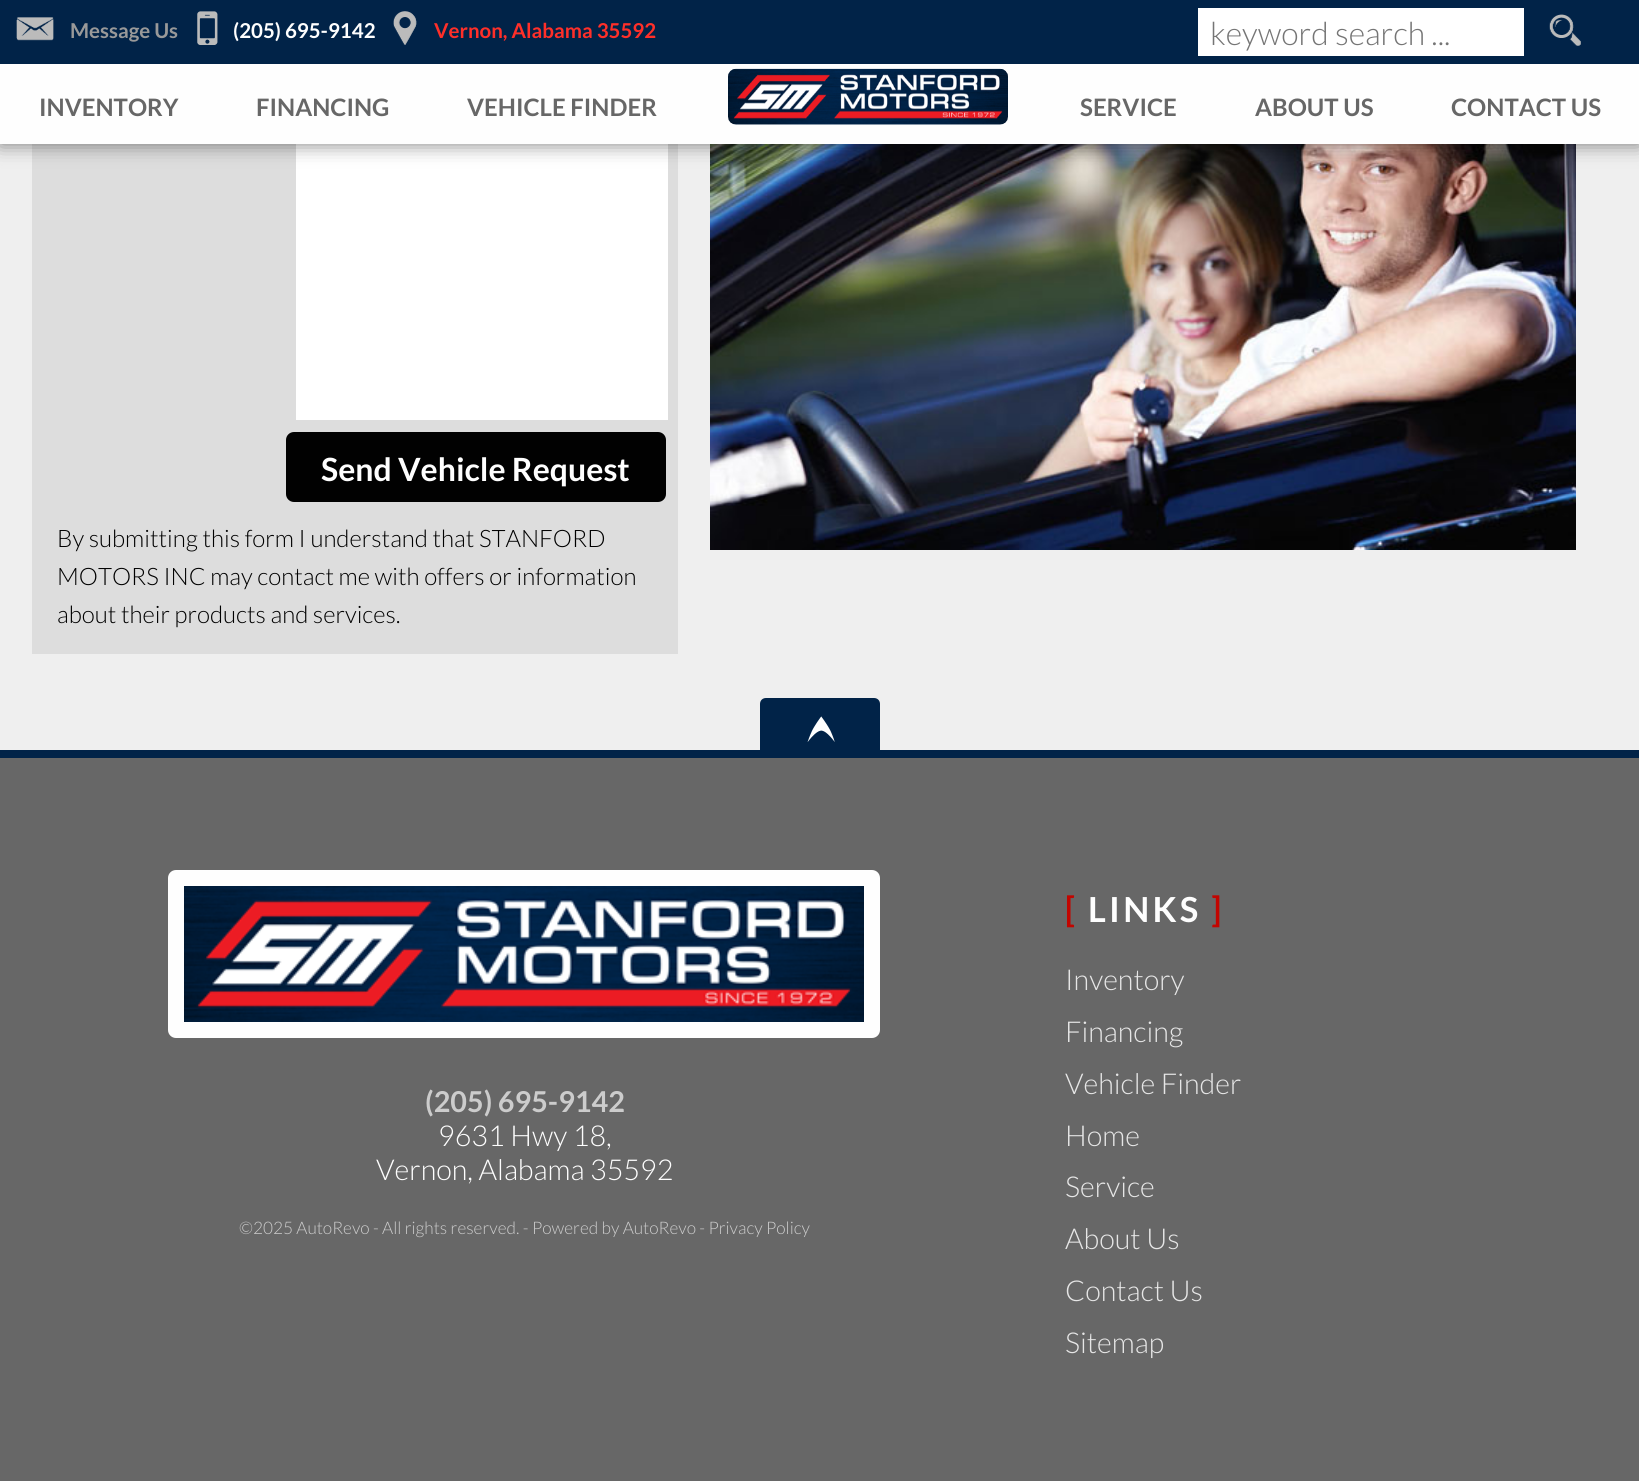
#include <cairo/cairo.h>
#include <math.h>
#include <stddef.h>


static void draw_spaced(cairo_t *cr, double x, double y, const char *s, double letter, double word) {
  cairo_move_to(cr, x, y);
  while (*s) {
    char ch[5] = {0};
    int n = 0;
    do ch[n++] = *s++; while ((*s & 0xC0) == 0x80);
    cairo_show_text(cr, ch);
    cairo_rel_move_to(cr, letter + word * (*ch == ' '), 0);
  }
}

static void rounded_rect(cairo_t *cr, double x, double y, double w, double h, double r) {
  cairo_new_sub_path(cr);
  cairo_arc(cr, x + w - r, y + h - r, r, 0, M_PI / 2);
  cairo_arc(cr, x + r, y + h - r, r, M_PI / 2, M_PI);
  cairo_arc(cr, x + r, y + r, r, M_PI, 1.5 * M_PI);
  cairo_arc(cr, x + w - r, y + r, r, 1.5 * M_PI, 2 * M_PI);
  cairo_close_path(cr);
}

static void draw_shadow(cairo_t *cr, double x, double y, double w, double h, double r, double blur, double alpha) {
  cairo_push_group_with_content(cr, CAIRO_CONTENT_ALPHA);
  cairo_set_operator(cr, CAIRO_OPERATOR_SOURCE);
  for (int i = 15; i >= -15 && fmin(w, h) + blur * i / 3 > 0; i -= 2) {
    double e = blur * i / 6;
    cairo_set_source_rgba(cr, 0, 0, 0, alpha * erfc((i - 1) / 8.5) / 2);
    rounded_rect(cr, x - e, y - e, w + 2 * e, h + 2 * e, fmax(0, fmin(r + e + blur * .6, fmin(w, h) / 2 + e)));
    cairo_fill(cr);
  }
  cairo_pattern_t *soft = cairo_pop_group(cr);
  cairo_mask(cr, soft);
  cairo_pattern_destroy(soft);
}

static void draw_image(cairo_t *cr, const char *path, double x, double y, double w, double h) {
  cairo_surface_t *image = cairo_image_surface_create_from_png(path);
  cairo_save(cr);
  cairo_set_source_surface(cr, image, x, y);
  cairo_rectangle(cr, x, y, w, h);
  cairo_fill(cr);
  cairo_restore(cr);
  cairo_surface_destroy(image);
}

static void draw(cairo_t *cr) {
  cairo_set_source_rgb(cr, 239 / 255.0, 239 / 255.0, 239 / 255.0);
  cairo_paint(cr);
  cairo_set_source_rgb(cr, 221 / 255.0, 221 / 255.0, 221 / 255.0);
  cairo_rectangle(cr, 32, 144, 646, 510);
  cairo_fill(cr);
  cairo_set_source_rgb(cr, 1, 1, 1);
  cairo_rectangle(cr, 296, 144, 372, 276);
  cairo_fill(cr);
  draw_image(cr, "images/6.png", 710, 144, 866, 406);
  cairo_set_source_rgb(cr, 0, 0, 0);
  draw_shadow(cr, 0, 0, 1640, 144, 0, 10, 0.5);
  cairo_set_source_rgb(cr, 254 / 255.0, 254 / 255.0, 254 / 255.0);
  cairo_rectangle(cr, 0, 64, 1639, 80);
  cairo_fill(cr);
  cairo_set_source_rgb(cr, 1 / 255.0, 35 / 255.0, 72 / 255.0);
  cairo_rectangle(cr, 0, 0, 1639, 64);
  cairo_fill(cr);
  draw_image(cr, "images/1.png", 16, 17, 38, 24);
  draw_image(cr, "images/2.png", 197, 11, 21, 34);
  draw_image(cr, "images/3.png", 393, 11, 24, 34);
  cairo_set_source_rgb(cr, 1, 1, 1);
  cairo_rectangle(cr, 1198, 8, 326, 48);
  cairo_fill(cr);
  draw_image(cr, "images/4.png", 1549, 14, 32, 32);
  draw_image(cr, "images/5.png", 728, 68, 280, 57);
  cairo_set_source_rgb(cr, 1 / 255.0, 1 / 255.0, 1 / 255.0);
  rounded_rect(cr, 286, 432, 380, 70, 8);
  cairo_fill(cr);
  cairo_set_source_rgb(cr, 103 / 255.0, 103 / 255.0, 103 / 255.0);
  cairo_rectangle(cr, 0, 758, 1639, 723);
  cairo_fill(cr);
  cairo_set_source_rgb(cr, 1 / 255.0, 35 / 255.0, 72 / 255.0);
  cairo_rectangle(cr, 0, 750, 1639, 8);
  cairo_fill(cr);
  cairo_new_path(cr);
  cairo_move_to(cr, 766, 698);
  cairo_line_to(cr, 874, 698);
  cairo_curve_to(cr, 877.5, 698, 880, 700.5, 880, 704);
  cairo_line_to(cr, 880, 754);
  cairo_line_to(cr, 760, 754);
  cairo_line_to(cr, 760, 704);
  cairo_curve_to(cr, 760, 700.5, 762.5, 698, 766, 698);
  cairo_close_path(cr);
  cairo_fill(cr);
  draw_image(cr, "images/7.png", 807, 716, 28, 26);
  cairo_set_source_rgb(cr, 254 / 255.0, 254 / 255.0, 254 / 255.0);
  rounded_rect(cr, 168, 870, 712, 168, 8);
  cairo_fill(cr);
  draw_image(cr, "images/8.png", 184, 886, 680, 136);
  cairo_select_font_face(cr, "Lato", CAIRO_FONT_SLANT_NORMAL, CAIRO_FONT_WEIGHT_BOLD);
  cairo_set_font_size(cr, 20.5);
  cairo_set_source_rgb(cr, 153 / 255.0, 153 / 255.0, 153 / 255.0);
  cairo_move_to(cr, 70, 38);
  cairo_show_text(cr, "Message Us");
  cairo_set_source_rgb(cr, 254 / 255.0, 254 / 255.0, 254 / 255.0);
  cairo_move_to(cr, 233, 38);
  cairo_show_text(cr, "(205) 695-9142");
  cairo_set_source_rgb(cr, 1, 47 / 255.0, 41 / 255.0);
  cairo_move_to(cr, 434, 38);
  cairo_show_text(cr, "Vernon, Alabama 35592");
  cairo_select_font_face(cr, "Lato Light", CAIRO_FONT_SLANT_NORMAL, CAIRO_FONT_WEIGHT_NORMAL);
  cairo_set_font_size(cr, 32);
  cairo_set_source_rgb(cr, 117 / 255.0, 117 / 255.0, 117 / 255.0);
  cairo_move_to(cr, 1210, 45);
  cairo_show_text(cr, "keyword search ...");
  cairo_select_font_face(cr, "Lato", CAIRO_FONT_SLANT_NORMAL, CAIRO_FONT_WEIGHT_BOLD);
  cairo_set_font_size(cr, 24);
  cairo_set_source_rgb(cr, 103 / 255.0, 103 / 255.0, 103 / 255.0);
  cairo_move_to(cr, 39, 116);
  cairo_show_text(cr, "INVENTORY");
  cairo_move_to(cr, 256, 116);
  cairo_show_text(cr, "FINANCING");
  cairo_move_to(cr, 467, 116);
  cairo_show_text(cr, "VEHICLE FINDER");
  cairo_move_to(cr, 1080, 116);
  cairo_show_text(cr, "SERVICE");
  cairo_move_to(cr, 1255, 116);
  cairo_show_text(cr, "ABOUT US");
  cairo_move_to(cr, 1451, 116);
  cairo_show_text(cr, "CONTACT US");
  cairo_set_font_size(cr, 32);
  cairo_set_source_rgb(cr, 254 / 255.0, 254 / 255.0, 254 / 255.0);
  cairo_move_to(cr, 321, 481);
  cairo_show_text(cr, "Send Vehicle Request");
  cairo_select_font_face(cr, "Lato Light", CAIRO_FONT_SLANT_NORMAL, CAIRO_FONT_WEIGHT_NORMAL);
  cairo_set_font_size(cr, 24);
  cairo_set_source_rgb(cr, 0, 0, 0);
  cairo_move_to(cr, 57, 547);
  cairo_show_text(cr, "By submitting this form I understand that STANFORD");
  cairo_move_to(cr, 57, 585);
  cairo_show_text(cr, "MOTORS INC may contact me with offers or information");
  cairo_move_to(cr, 57, 623);
  cairo_show_text(cr, "about their products and services.");
  cairo_select_font_face(cr, "Lato", CAIRO_FONT_SLANT_NORMAL, CAIRO_FONT_WEIGHT_BOLD);
  cairo_set_font_size(cr, 28.75);
  cairo_set_source_rgb(cr, 204 / 255.0, 204 / 255.0, 204 / 255.0);
  cairo_move_to(cr, 425, 1112);
  cairo_show_text(cr, "(205) 695-9142");
  cairo_select_font_face(cr, "Lato Light", CAIRO_FONT_SLANT_NORMAL, CAIRO_FONT_WEIGHT_NORMAL);
  cairo_set_source_rgb(cr, 254 / 255.0, 254 / 255.0, 254 / 255.0);
  cairo_move_to(cr, 438, 1146);
  cairo_show_text(cr, "9631 Hwy 18,");
  cairo_move_to(cr, 376, 1180);
  cairo_show_text(cr, "Vernon, Alabama 35592");
  cairo_set_font_size(cr, 17.25);
  cairo_set_source_rgb(cr, 204 / 255.0, 204 / 255.0, 204 / 255.0);
  cairo_move_to(cr, 239, 1234);
  cairo_show_text(cr, "©2025 AutoRevo - All rights reserved. -");
  cairo_move_to(cr, 532, 1234);
  cairo_show_text(cr, "Powered by AutoRevo - Privacy Policy");
  cairo_select_font_face(cr, "Lato", CAIRO_FONT_SLANT_NORMAL, CAIRO_FONT_WEIGHT_BOLD);
  cairo_set_font_size(cr, 34.5);
  cairo_set_source_rgb(cr, 194 / 255.0, 5 / 255.0, 0);
  draw_spaced(cr, 1065, 922, "[", 3.25, 0);
  cairo_set_source_rgb(cr, 254 / 255.0, 254 / 255.0, 254 / 255.0);
  draw_spaced(cr, 1088, 922, "LINKS", 3.25, 0);
  cairo_set_source_rgb(cr, 194 / 255.0, 5 / 255.0, 0);
  draw_spaced(cr, 1211, 922, "]", 3.25, 0);
  cairo_select_font_face(cr, "Lato Light", CAIRO_FONT_SLANT_NORMAL, CAIRO_FONT_WEIGHT_NORMAL);
  cairo_set_font_size(cr, 28.75);
  cairo_set_source_rgb(cr, 230 / 255.0, 230 / 255.0, 230 / 255.0);
  cairo_move_to(cr, 1065, 990);
  cairo_show_text(cr, "Inventory");
  cairo_move_to(cr, 1065, 1042);
  cairo_show_text(cr, "Financing");
  cairo_move_to(cr, 1065, 1094);
  cairo_show_text(cr, "Vehicle Finder");
  cairo_move_to(cr, 1065, 1146);
  cairo_show_text(cr, "Home");
  cairo_move_to(cr, 1065, 1197);
  cairo_show_text(cr, "Service");
  cairo_move_to(cr, 1065, 1249);
  cairo_show_text(cr, "About Us");
  cairo_move_to(cr, 1065, 1301);
  cairo_show_text(cr, "Contact Us");
  cairo_move_to(cr, 1065, 1353);
  cairo_show_text(cr, "Sitemap");
}

int main(void) {
  cairo_surface_t *surface = cairo_image_surface_create(CAIRO_FORMAT_RGB24, 1639, 1481);
  cairo_t *cr = cairo_create(surface);
  cairo_font_options_t *options = cairo_font_options_create();
  cairo_font_options_set_hint_metrics(options, CAIRO_HINT_METRICS_OFF);
  cairo_font_options_set_hint_style(options, CAIRO_HINT_STYLE_NONE);
  cairo_set_font_options(cr, options);
  cairo_set_miter_limit(cr, 4);
  draw(cr);
  cairo_surface_write_to_png(surface, "out.png");
  cairo_font_options_destroy(options);
  cairo_destroy(cr);
  cairo_surface_destroy(surface);
  return 0;
}
